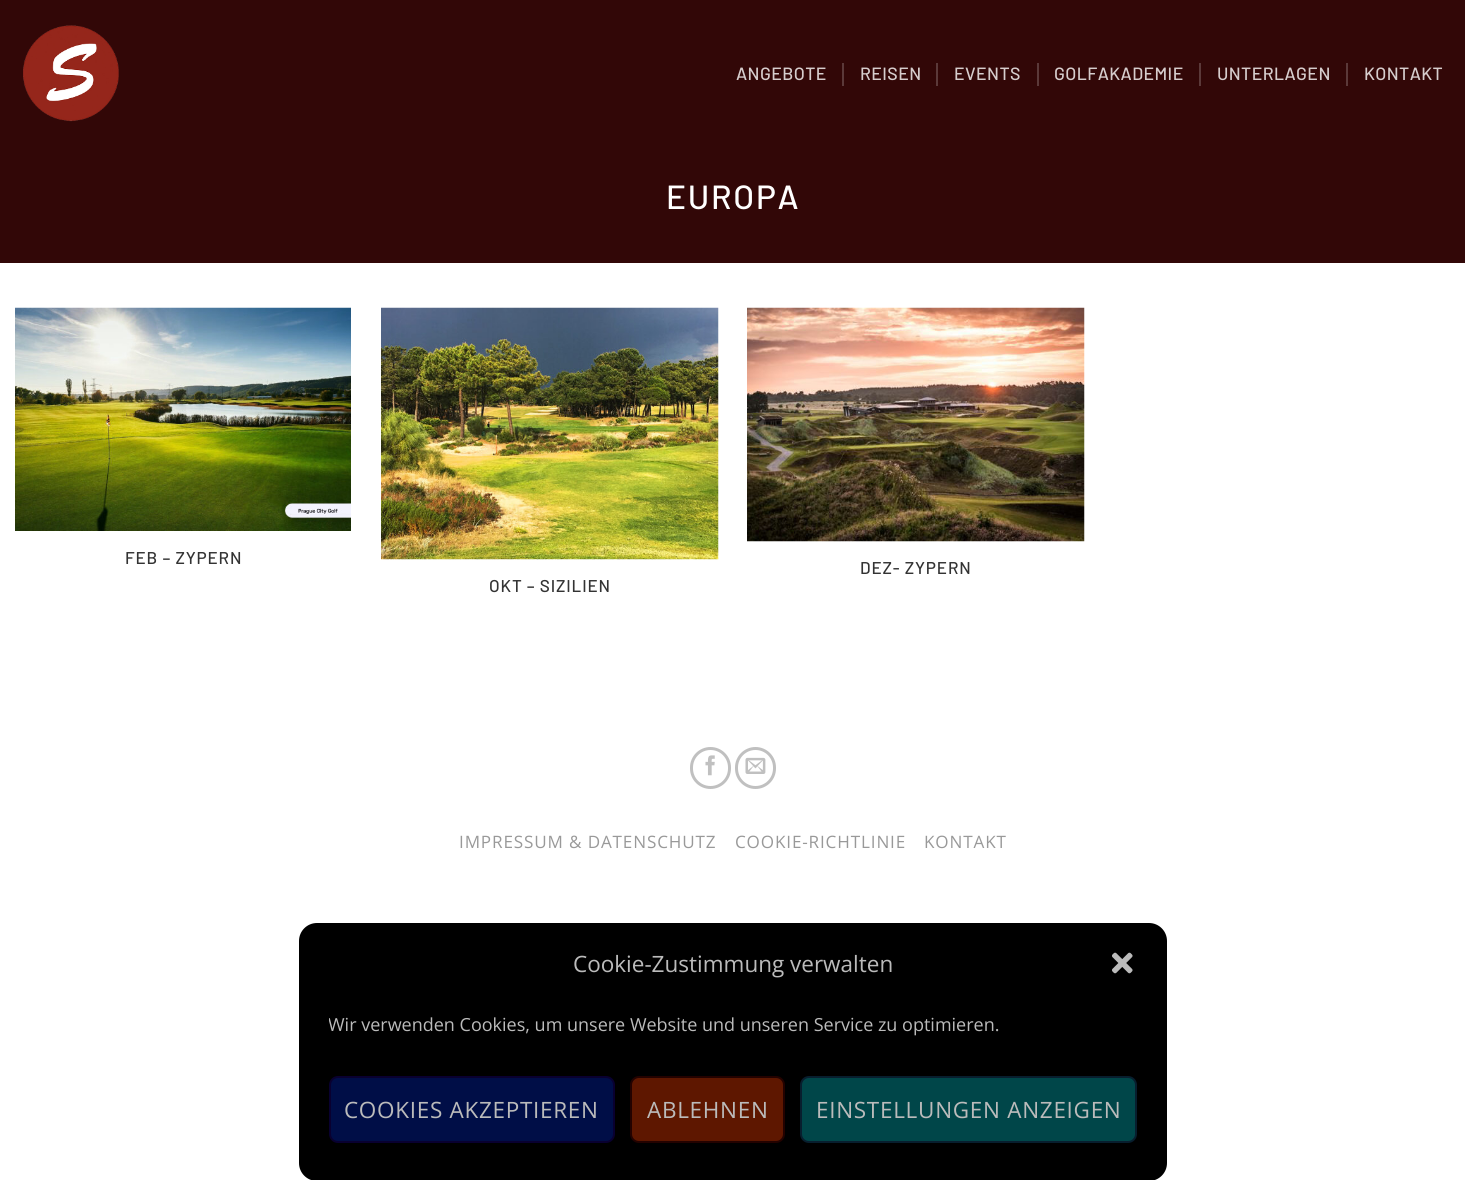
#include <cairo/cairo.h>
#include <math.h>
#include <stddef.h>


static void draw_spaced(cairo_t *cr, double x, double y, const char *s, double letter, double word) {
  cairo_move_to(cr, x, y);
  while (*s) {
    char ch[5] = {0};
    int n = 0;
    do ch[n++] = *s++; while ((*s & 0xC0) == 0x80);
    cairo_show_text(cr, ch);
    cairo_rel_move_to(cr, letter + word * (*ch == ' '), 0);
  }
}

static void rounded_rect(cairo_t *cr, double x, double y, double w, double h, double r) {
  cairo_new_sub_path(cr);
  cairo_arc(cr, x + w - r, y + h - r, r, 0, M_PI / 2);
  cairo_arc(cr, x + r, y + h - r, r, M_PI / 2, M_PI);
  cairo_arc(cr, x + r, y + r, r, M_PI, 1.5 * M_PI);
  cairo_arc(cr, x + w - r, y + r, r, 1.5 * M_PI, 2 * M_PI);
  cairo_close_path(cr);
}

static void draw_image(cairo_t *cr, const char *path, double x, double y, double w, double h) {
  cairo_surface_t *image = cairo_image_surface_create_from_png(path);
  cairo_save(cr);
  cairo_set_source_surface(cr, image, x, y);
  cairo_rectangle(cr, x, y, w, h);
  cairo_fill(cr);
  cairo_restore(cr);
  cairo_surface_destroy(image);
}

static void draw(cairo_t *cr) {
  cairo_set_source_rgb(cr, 1, 1, 1);
  cairo_paint(cr);
  cairo_set_source_rgb(cr, 50 / 255.0, 7 / 255.0, 7 / 255.0);
  cairo_rectangle(cr, 0, 0, 1465, 263);
  cairo_fill(cr);
  draw_image(cr, "images/1.png", 23, 25, 96, 97);
  cairo_set_source_rgb(cr, 91 / 255.0, 57 / 255.0, 57 / 255.0);
  cairo_rectangle(cr, 842, 63, 2, 23);
  cairo_fill(cr);
  cairo_rectangle(cr, 936, 63, 2, 23);
  cairo_fill(cr);
  cairo_rectangle(cr, 1037, 63, 2, 23);
  cairo_fill(cr);
  cairo_rectangle(cr, 1199, 63, 2, 23);
  cairo_fill(cr);
  cairo_rectangle(cr, 1346, 63, 2, 23);
  cairo_fill(cr);
  draw_image(cr, "images/2.png", 15, 307, 336, 224);
  draw_image(cr, "images/3.png", 747, 307, 338, 235);
  draw_image(cr, "images/4.png", 381, 307, 338, 253);
  rounded_rect(cr, 691.5, 748.5, 38, 39, 19);
  cairo_set_source_rgb(cr, 192 / 255.0, 192 / 255.0, 192 / 255.0);
  cairo_set_line_width(cr, 3);
  cairo_stroke(cr);
  draw_image(cr, "images/5.png", 705, 755, 10, 21);
  rounded_rect(cr, 736.5, 748.5, 38, 39, 19);
  cairo_stroke(cr);
  draw_image(cr, "images/6.png", 745, 757, 21, 17);
  cairo_set_source_rgb(cr, 0, 0, 0);
  rounded_rect(cr, 299, 923, 868, 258, 18);
  cairo_fill(cr);
  draw_image(cr, "images/7.png", 1112, 952, 21, 22);
  cairo_set_source_rgb(cr, 0, 14 / 255.0, 71 / 255.0);
  rounded_rect(cr, 330, 1077, 284, 65, 8);
  cairo_fill_preserve(cr);
  cairo_set_source_rgb(cr, 9 / 255.0, 0, 48 / 255.0);
  cairo_set_line_width(cr, 2);
  cairo_stroke(cr);
  cairo_set_source_rgb(cr, 94 / 255.0, 23 / 255.0, 0);
  rounded_rect(cr, 631, 1077, 153, 65, 8);
  cairo_fill_preserve(cr);
  cairo_set_source_rgb(cr, 35 / 255.0, 2 / 255.0, 0);
  cairo_stroke(cr);
  cairo_set_source_rgb(cr, 0, 70 / 255.0, 73 / 255.0);
  rounded_rect(cr, 801, 1077, 335, 65, 8);
  cairo_fill_preserve(cr);
  cairo_set_source_rgb(cr, 8 / 255.0, 30 / 255.0, 46 / 255.0);
  cairo_stroke(cr);
  cairo_select_font_face(cr, "Barlow Medium", CAIRO_FONT_SLANT_NORMAL, CAIRO_FONT_WEIGHT_NORMAL);
  cairo_set_font_size(cr, 17.75);
  cairo_set_source_rgb(cr, 214 / 255.0, 205 / 255.0, 205 / 255.0);
  draw_spaced(cr, 736, 80, "ANGEBOTE", 0.4, 0);
  draw_spaced(cr, 860, 80, "REISEN", 0.4, 0);
  draw_spaced(cr, 954, 80, "EVENTS", 0.4, 0);
  draw_spaced(cr, 1054, 80, "GOLFAKADEMIE", 0.4, 0);
  draw_spaced(cr, 1217, 80, "UNTERLAGEN", 0.4, 0);
  draw_spaced(cr, 1364, 80, "KONTAKT", 0.4, 0);
  cairo_set_font_size(cr, 33.5);
  cairo_set_source_rgb(cr, 1, 1, 1);
  draw_spaced(cr, 666, 209, "EUROPA", 1.75, 0);
  cairo_set_font_size(cr, 17.1);
  cairo_set_source_rgb(cr, 51 / 255.0, 51 / 255.0, 51 / 255.0);
  draw_spaced(cr, 125, 564, "FEB – ZYPERN", 0.85, 0);
  draw_spaced(cr, 860, 574, "DEZ- ZYPERN", 0.85, 0);
  draw_spaced(cr, 489, 592, "OKT – SIZILIEN", 0.85, 0);
  cairo_select_font_face(cr, "Open Sans", CAIRO_FONT_SLANT_NORMAL, CAIRO_FONT_WEIGHT_NORMAL);
  cairo_set_source_rgb(cr, 153 / 255.0, 153 / 255.0, 153 / 255.0);
  draw_spaced(cr, 459, 848, "IMPRESSUM & DATENSCHUTZ", 0.85, 0);
  draw_spaced(cr, 735, 848, "COOKIE-RICHTLINIE", 0.85, 0);
  draw_spaced(cr, 924, 848, "KONTAKT", 0.85, 0);
  cairo_set_font_size(cr, 22.5);
  cairo_set_source_rgb(cr, 187 / 255.0, 187 / 255.0, 187 / 255.0);
  cairo_move_to(cr, 573, 972);
  cairo_show_text(cr, "Cookie-Zustimmung verwalten");
  cairo_save(cr);
  cairo_rectangle(cr, 329, 1011, 808, 35);
  cairo_clip(cr);
  cairo_set_font_size(cr, 18);
  cairo_move_to(cr, 328, 1031);
  cairo_show_text(cr, "Wir verwenden Cookies, um unsere Website und unseren Service zu optimieren.");
  cairo_restore(cr);
  draw_spaced(cr, 344, 1118, "COOKIES AKZEPTIEREN", 0.7, 0);
  draw_spaced(cr, 647, 1118, "ABLEHNEN", 0.7, 0);
  draw_spaced(cr, 816, 1118, "EINSTELLUNGEN ANZEIGEN", 0.7, 0);
}

int main(void) {
  cairo_surface_t *surface = cairo_image_surface_create(CAIRO_FORMAT_RGB24, 1465, 1180);
  cairo_t *cr = cairo_create(surface);
  cairo_font_options_t *options = cairo_font_options_create();
  cairo_font_options_set_hint_metrics(options, CAIRO_HINT_METRICS_OFF);
  cairo_font_options_set_hint_style(options, CAIRO_HINT_STYLE_NONE);
  cairo_set_font_options(cr, options);
  cairo_set_miter_limit(cr, 4);
  draw(cr);
  cairo_surface_write_to_png(surface, "out.png");
  cairo_font_options_destroy(options);
  cairo_destroy(cr);
  cairo_surface_destroy(surface);
  return 0;
}
